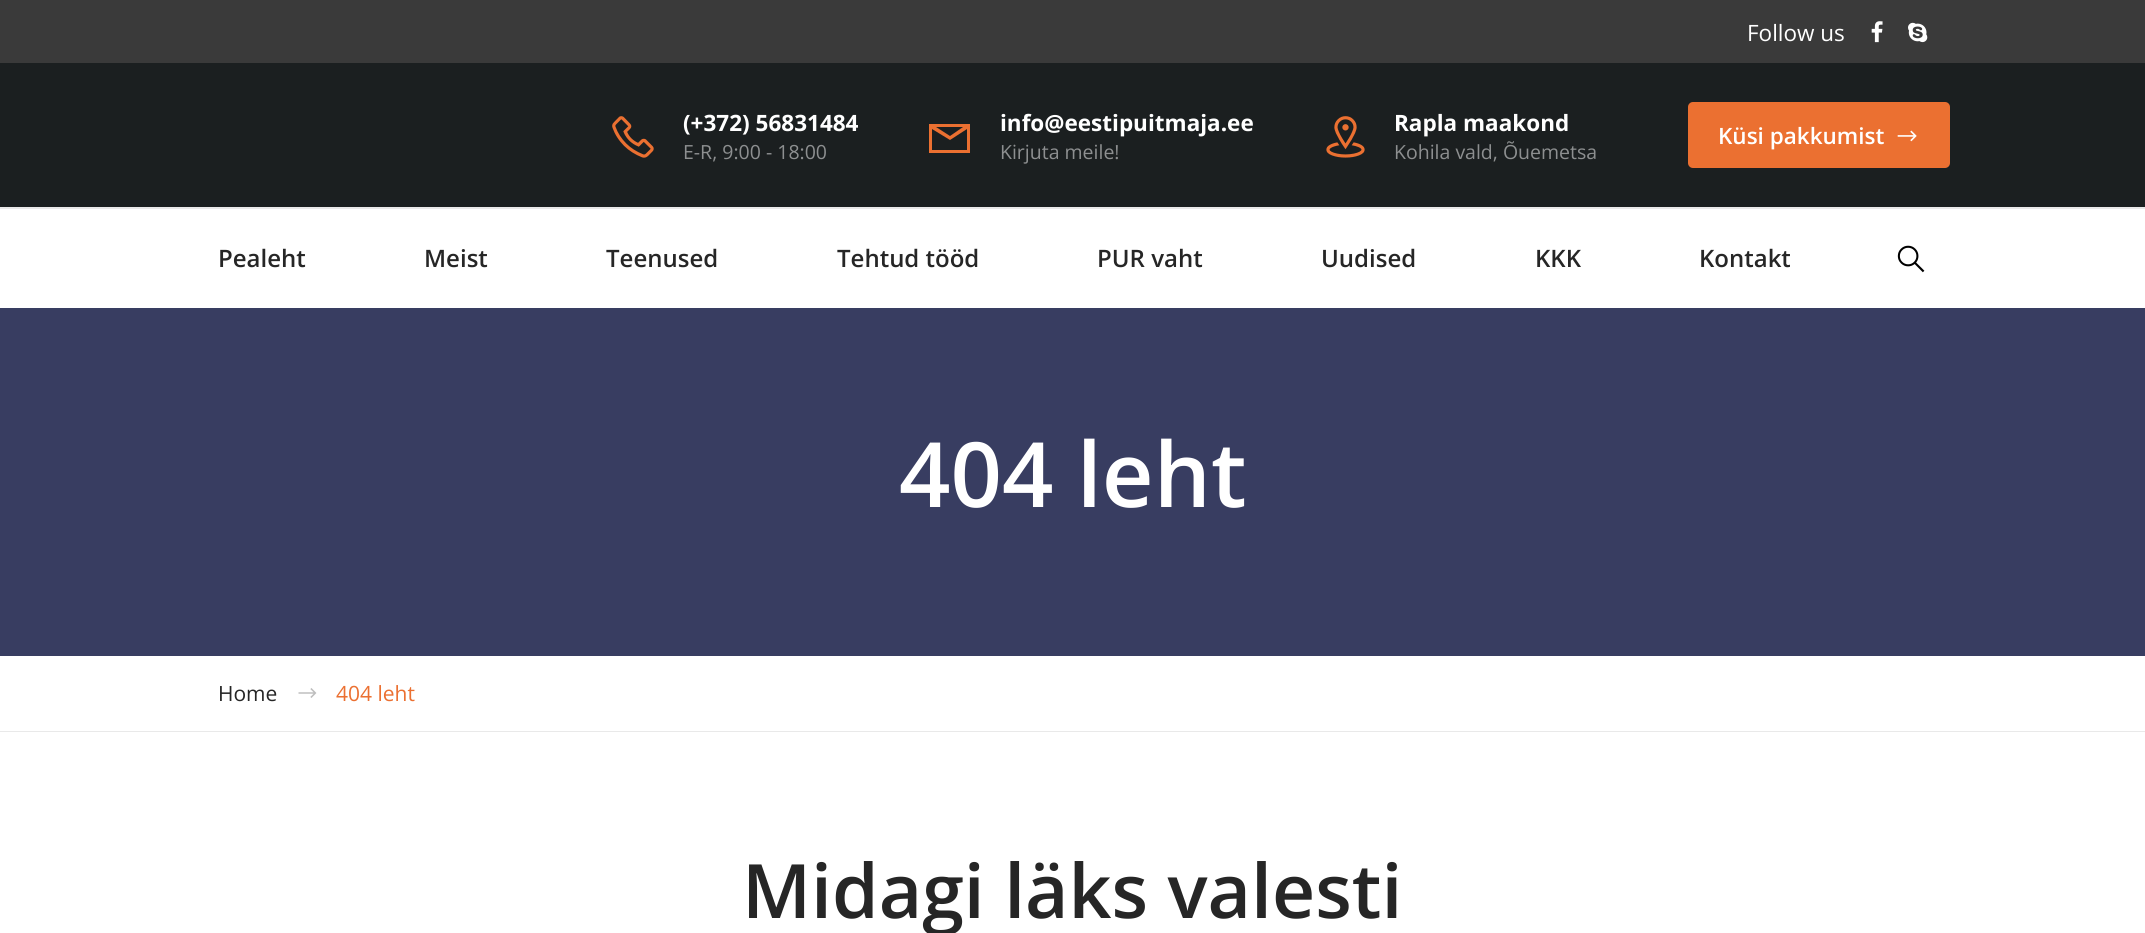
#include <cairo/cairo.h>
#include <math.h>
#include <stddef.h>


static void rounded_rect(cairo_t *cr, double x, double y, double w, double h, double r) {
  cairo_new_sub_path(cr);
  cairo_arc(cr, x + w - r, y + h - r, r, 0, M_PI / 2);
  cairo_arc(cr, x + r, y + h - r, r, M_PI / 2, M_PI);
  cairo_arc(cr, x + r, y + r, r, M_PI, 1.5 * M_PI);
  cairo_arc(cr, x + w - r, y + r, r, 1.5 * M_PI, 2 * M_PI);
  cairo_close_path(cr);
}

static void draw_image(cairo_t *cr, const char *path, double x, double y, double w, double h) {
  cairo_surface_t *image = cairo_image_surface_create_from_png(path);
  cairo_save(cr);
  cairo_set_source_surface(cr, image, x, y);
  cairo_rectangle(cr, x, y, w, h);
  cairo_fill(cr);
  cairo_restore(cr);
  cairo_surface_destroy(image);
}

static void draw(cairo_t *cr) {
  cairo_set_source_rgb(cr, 1, 1, 1);
  cairo_paint(cr);
  cairo_set_source_rgb(cr, 58 / 255.0, 58 / 255.0, 58 / 255.0);
  cairo_rectangle(cr, 0, 0, 2145, 63);
  cairo_fill(cr);
  draw_image(cr, "images/1.png", 1871, 21, 12, 22);
  draw_image(cr, "images/2.png", 1908, 22, 20, 21);
  cairo_set_source_rgb(cr, 27 / 255.0, 31 / 255.0, 32 / 255.0);
  cairo_rectangle(cr, 0, 63, 2145, 144);
  cairo_fill(cr);
  draw_image(cr, "images/3.png", 612, 116, 42, 42);
  cairo_set_source_rgb(cr, 235 / 255.0, 112 / 255.0, 49 / 255.0);
  cairo_new_path(cr);
  cairo_move_to(cr, 929, 124);
  cairo_line_to(cr, 970, 124);
  cairo_line_to(cr, 970, 153);
  cairo_line_to(cr, 929, 153);
  cairo_close_path(cr);
  cairo_move_to(cr, 936, 127);
  cairo_line_to(cr, 950, 136);
  cairo_line_to(cr, 963, 127);
  cairo_close_path(cr);
  cairo_move_to(cr, 932, 129);
  cairo_line_to(cr, 932, 150);
  cairo_line_to(cr, 967, 150);
  cairo_line_to(cr, 967, 129);
  cairo_line_to(cr, 950, 140);
  cairo_close_path(cr);
  cairo_fill(cr);
  draw_image(cr, "images/4.png", 1326, 116, 39, 42);
  rounded_rect(cr, 1688, 102, 262, 66, 5);
  cairo_fill(cr);
  draw_image(cr, "images/5.png", 1897, 130, 20, 12);
  cairo_set_source_rgb(cr, 233 / 255.0, 233 / 255.0, 233 / 255.0);
  cairo_rectangle(cr, 0, 207, 2145, 2);
  cairo_fill(cr);
  draw_image(cr, "images/6.png", 1897, 245, 28, 28);
  cairo_set_source_rgb(cr, 56 / 255.0, 61 / 255.0, 97 / 255.0);
  cairo_rectangle(cr, 0, 308, 2145, 348);
  cairo_fill(cr);
  cairo_set_source_rgb(cr, 233 / 255.0, 233 / 255.0, 233 / 255.0);
  cairo_rectangle(cr, 0, 731, 2145, 1);
  cairo_fill(cr);
  draw_image(cr, "images/7.png", 298, 688, 19, 10);
  cairo_select_font_face(cr, "Open Sans", CAIRO_FONT_SLANT_NORMAL, CAIRO_FONT_WEIGHT_NORMAL);
  cairo_set_font_size(cr, 22.5);
  cairo_set_source_rgb(cr, 1, 1, 1);
  cairo_move_to(cr, 1747, 41);
  cairo_show_text(cr, "Follow us");
  cairo_select_font_face(cr, "Open Sans", CAIRO_FONT_SLANT_NORMAL, CAIRO_FONT_WEIGHT_BOLD);
  cairo_move_to(cr, 683, 131);
  cairo_show_text(cr, "(+372) 56831484");
  cairo_select_font_face(cr, "Open Sans", CAIRO_FONT_SLANT_NORMAL, CAIRO_FONT_WEIGHT_NORMAL);
  cairo_set_font_size(cr, 19.5);
  cairo_set_source_rgb(cr, 141 / 255.0, 143 / 255.0, 144 / 255.0);
  cairo_move_to(cr, 683, 159);
  cairo_show_text(cr, "E-R, 9:00 - 18:00");
  cairo_select_font_face(cr, "Open Sans", CAIRO_FONT_SLANT_NORMAL, CAIRO_FONT_WEIGHT_BOLD);
  cairo_set_font_size(cr, 22.5);
  cairo_set_source_rgb(cr, 1, 1, 1);
  cairo_move_to(cr, 1000, 131);
  cairo_show_text(cr, "info@eestipuitmaja.ee");
  cairo_select_font_face(cr, "Open Sans", CAIRO_FONT_SLANT_NORMAL, CAIRO_FONT_WEIGHT_NORMAL);
  cairo_set_font_size(cr, 19.5);
  cairo_set_source_rgb(cr, 141 / 255.0, 143 / 255.0, 144 / 255.0);
  cairo_move_to(cr, 1000, 159);
  cairo_show_text(cr, "Kirjuta meile!");
  cairo_select_font_face(cr, "Open Sans", CAIRO_FONT_SLANT_NORMAL, CAIRO_FONT_WEIGHT_BOLD);
  cairo_set_font_size(cr, 22.5);
  cairo_set_source_rgb(cr, 1, 1, 1);
  cairo_move_to(cr, 1394, 131);
  cairo_show_text(cr, "Rapla maakond");
  cairo_select_font_face(cr, "Open Sans", CAIRO_FONT_SLANT_NORMAL, CAIRO_FONT_WEIGHT_NORMAL);
  cairo_set_font_size(cr, 19.5);
  cairo_set_source_rgb(cr, 141 / 255.0, 143 / 255.0, 144 / 255.0);
  cairo_move_to(cr, 1394, 159);
  cairo_show_text(cr, "Kohila vald, Õuemetsa");
  cairo_select_font_face(cr, "Open Sans SemiBold", CAIRO_FONT_SLANT_NORMAL, CAIRO_FONT_WEIGHT_NORMAL);
  cairo_set_font_size(cr, 22.5);
  cairo_set_source_rgb(cr, 1, 1, 1);
  cairo_move_to(cr, 1718, 144);
  cairo_show_text(cr, "Küsi pakkumist");
  cairo_set_font_size(cr, 24);
  cairo_set_source_rgb(cr, 38 / 255.0, 38 / 255.0, 38 / 255.0);
  cairo_move_to(cr, 218, 267);
  cairo_show_text(cr, "Pealeht");
  cairo_move_to(cr, 424, 267);
  cairo_show_text(cr, "Meist");
  cairo_move_to(cr, 606, 267);
  cairo_show_text(cr, "Teenused");
  cairo_move_to(cr, 837, 267);
  cairo_show_text(cr, "Tehtud tööd");
  cairo_move_to(cr, 1097, 267);
  cairo_show_text(cr, "PUR vaht");
  cairo_move_to(cr, 1321, 267);
  cairo_show_text(cr, "Uudised");
  cairo_move_to(cr, 1535, 267);
  cairo_show_text(cr, "KKK");
  cairo_move_to(cr, 1699, 267);
  cairo_show_text(cr, "Kontakt");
  cairo_set_font_size(cr, 90);
  cairo_set_source_rgb(cr, 1, 1, 1);
  cairo_move_to(cr, 899, 507);
  cairo_show_text(cr, "404 leht");
  cairo_select_font_face(cr, "Open Sans", CAIRO_FONT_SLANT_NORMAL, CAIRO_FONT_WEIGHT_NORMAL);
  cairo_set_font_size(cr, 21);
  cairo_set_source_rgb(cr, 38 / 255.0, 38 / 255.0, 38 / 255.0);
  cairo_move_to(cr, 218, 701);
  cairo_show_text(cr, "Home");
  cairo_set_source_rgb(cr, 235 / 255.0, 112 / 255.0, 49 / 255.0);
  cairo_move_to(cr, 336, 701);
  cairo_show_text(cr, "404 leht");
  cairo_select_font_face(cr, "Open Sans SemiBold", CAIRO_FONT_SLANT_NORMAL, CAIRO_FONT_WEIGHT_NORMAL);
  cairo_set_font_size(cr, 75);
  cairo_set_source_rgb(cr, 38 / 255.0, 38 / 255.0, 38 / 255.0);
  cairo_move_to(cr, 742, 918);
  cairo_show_text(cr, "Midagi läks valesti");
}

int main(void) {
  cairo_surface_t *surface = cairo_image_surface_create(CAIRO_FORMAT_RGB24, 2145, 933);
  cairo_t *cr = cairo_create(surface);
  cairo_font_options_t *options = cairo_font_options_create();
  cairo_font_options_set_hint_metrics(options, CAIRO_HINT_METRICS_OFF);
  cairo_font_options_set_hint_style(options, CAIRO_HINT_STYLE_NONE);
  cairo_set_font_options(cr, options);
  cairo_set_miter_limit(cr, 4);
  draw(cr);
  cairo_surface_write_to_png(surface, "out.png");
  cairo_font_options_destroy(options);
  cairo_destroy(cr);
  cairo_surface_destroy(surface);
  return 0;
}
